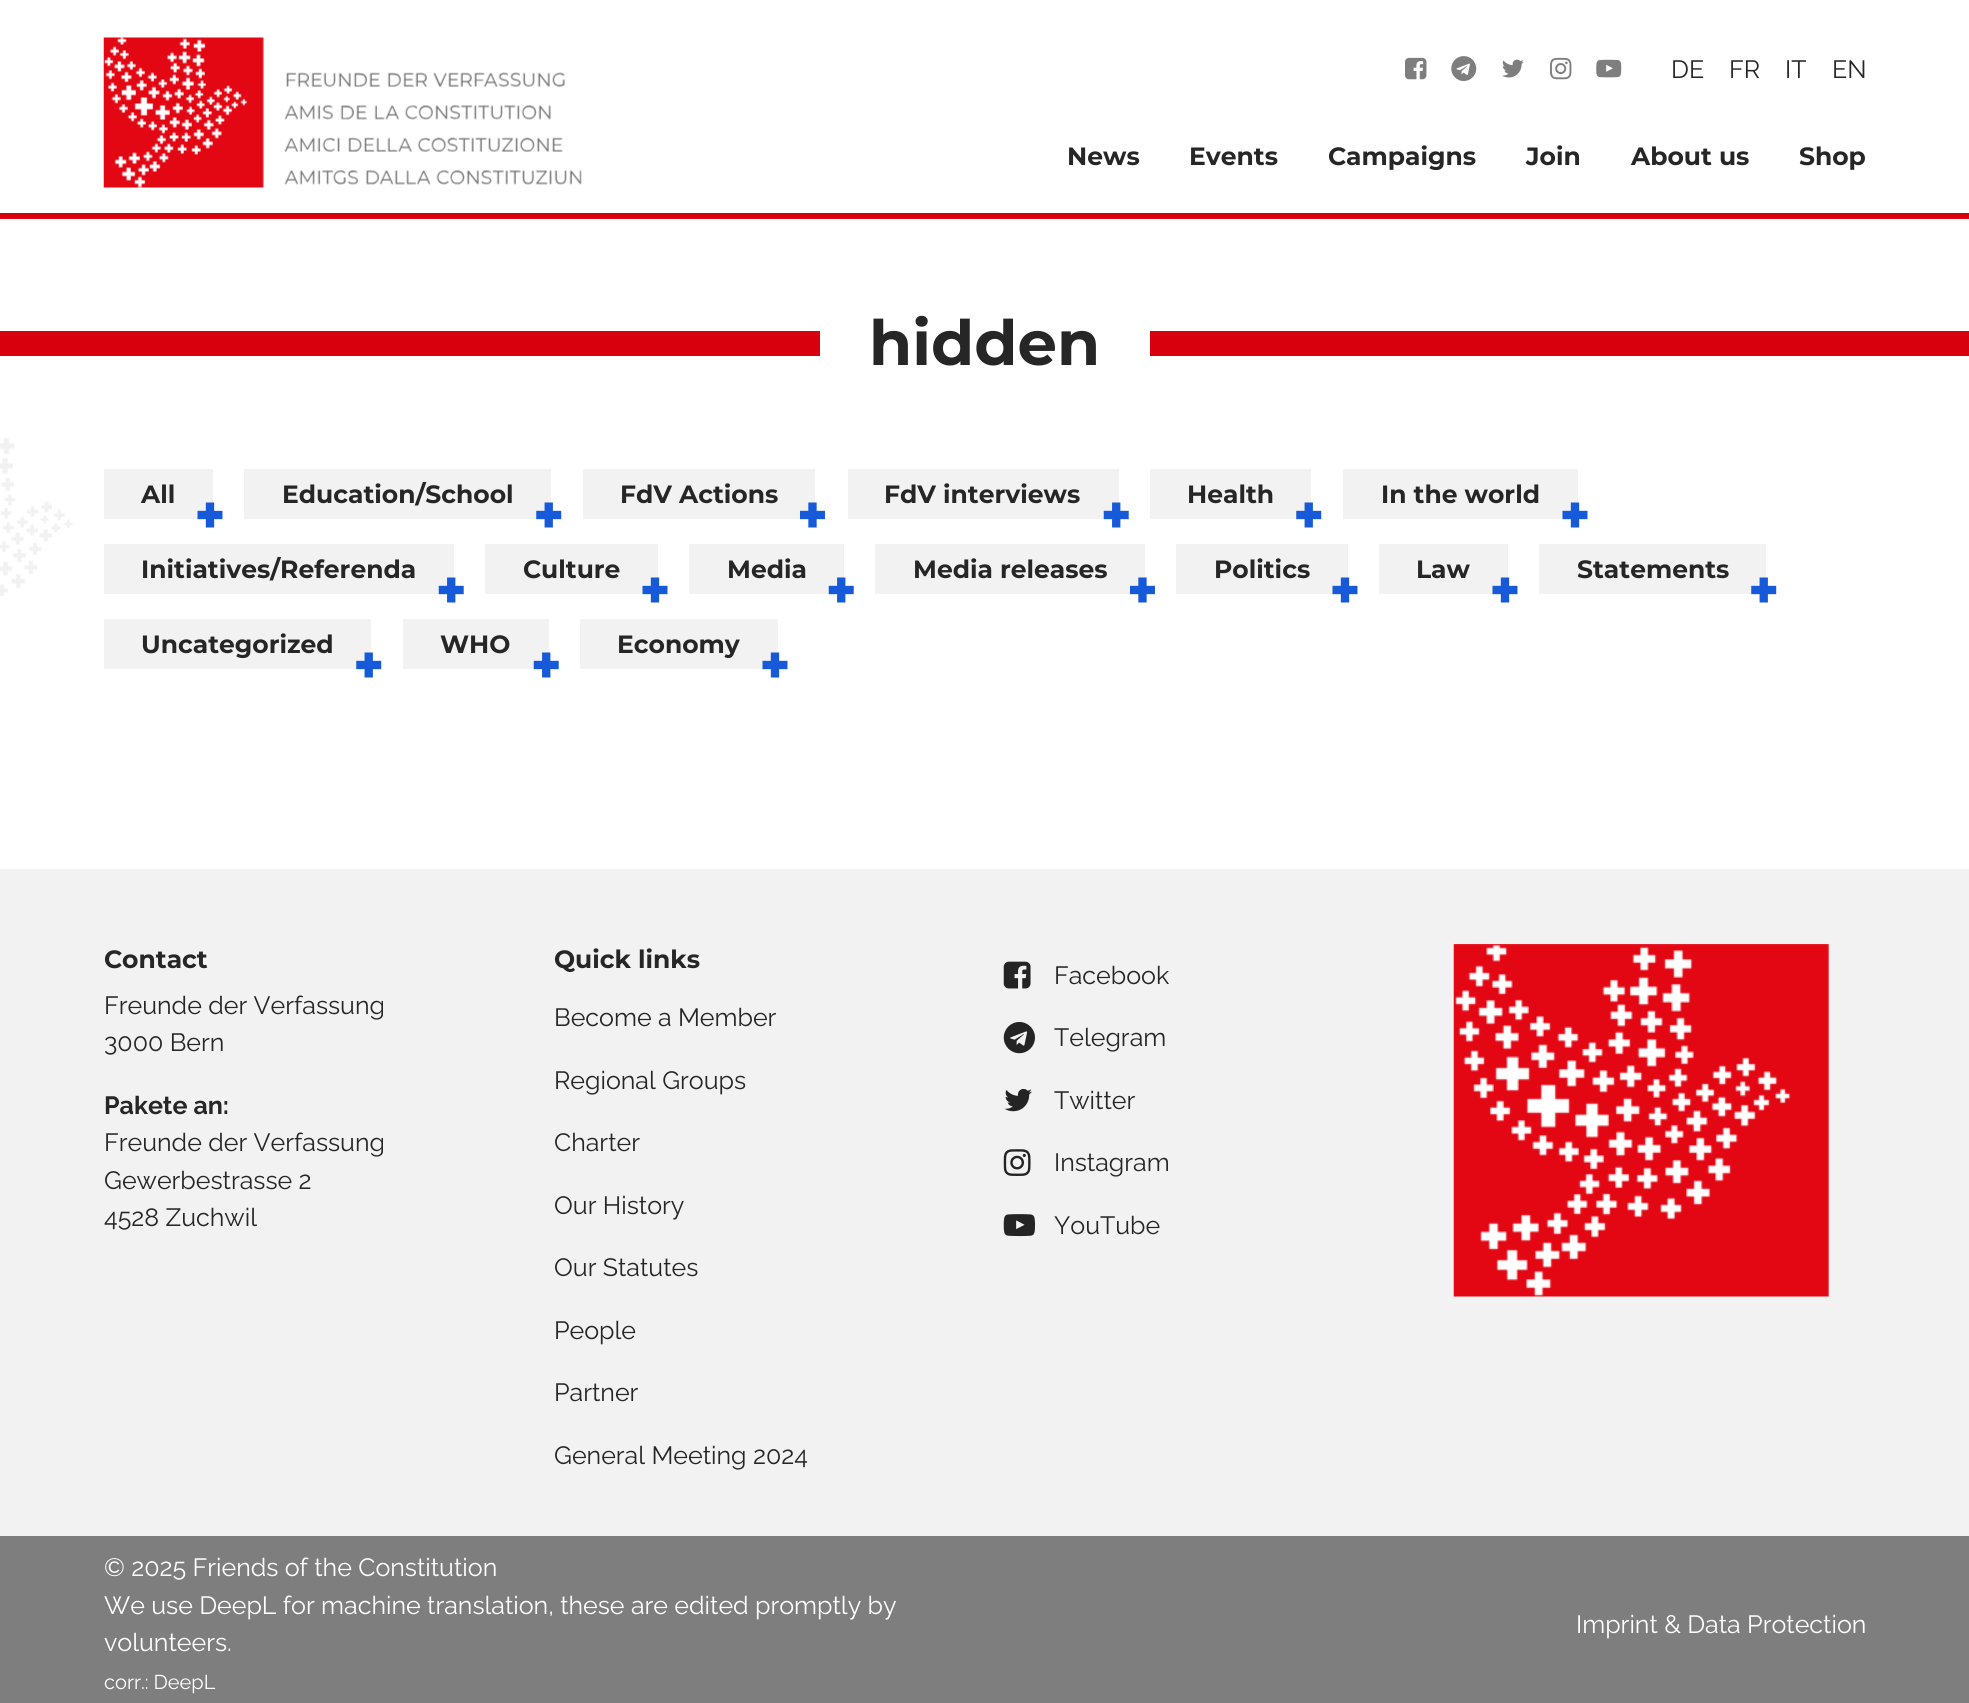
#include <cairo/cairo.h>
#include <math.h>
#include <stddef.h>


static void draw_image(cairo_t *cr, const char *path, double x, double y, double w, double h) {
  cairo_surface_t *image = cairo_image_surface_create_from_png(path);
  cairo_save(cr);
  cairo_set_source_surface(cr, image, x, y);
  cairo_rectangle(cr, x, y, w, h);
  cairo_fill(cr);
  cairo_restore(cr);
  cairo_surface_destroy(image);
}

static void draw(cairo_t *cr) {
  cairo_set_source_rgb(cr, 1, 1, 1);
  cairo_paint(cr);
  cairo_set_source_rgb(cr, 217 / 255.0, 0, 13 / 255.0);
  cairo_rectangle(cr, 0, 213, 1969, 6);
  cairo_fill(cr);
  draw_image(cr, "images/1.png", 103, 37, 479, 151);
  draw_image(cr, "images/2.png", 1405, 57, 22, 23);
  draw_image(cr, "images/3.png", 1451, 56, 26, 26);
  draw_image(cr, "images/4.png", 1502, 59, 22, 19);
  draw_image(cr, "images/5.png", 1550, 57, 22, 23);
  draw_image(cr, "images/6.png", 1596, 59, 26, 19);
  draw_image(cr, "images/7.png", 0, 438, 73, 158);
  cairo_rectangle(cr, 0, 331, 820, 25);
  cairo_fill(cr);
  cairo_rectangle(cr, 1150, 331, 819, 25);
  cairo_fill(cr);
  cairo_set_source_rgb(cr, 242 / 255.0, 242 / 255.0, 242 / 255.0);
  cairo_rectangle(cr, 104, 469, 109, 50);
  cairo_fill(cr);
  draw_image(cr, "images/8.png", 197, 502, 26, 26);
  cairo_rectangle(cr, 244, 469, 307, 50);
  cairo_fill(cr);
  draw_image(cr, "images/9.png", 536, 502, 26, 26);
  cairo_rectangle(cr, 583, 469, 232, 50);
  cairo_fill(cr);
  draw_image(cr, "images/10.png", 800, 502, 25, 26);
  cairo_rectangle(cr, 848, 469, 271, 50);
  cairo_fill(cr);
  draw_image(cr, "images/11.png", 1103, 502, 26, 26);
  cairo_rectangle(cr, 1150, 469, 161, 50);
  cairo_fill(cr);
  draw_image(cr, "images/9.png", 1296, 502, 26, 26);
  cairo_rectangle(cr, 1343, 469, 235, 50);
  cairo_fill(cr);
  draw_image(cr, "images/8.png", 1562, 502, 26, 26);
  cairo_rectangle(cr, 104, 544, 350, 50);
  cairo_fill(cr);
  draw_image(cr, "images/11.png", 438, 577, 26, 26);
  cairo_rectangle(cr, 485, 544, 173, 50);
  cairo_fill(cr);
  draw_image(cr, "images/8.png", 642, 577, 26, 26);
  cairo_rectangle(cr, 689, 544, 155, 50);
  cairo_fill(cr);
  draw_image(cr, "images/11.png", 828, 577, 26, 26);
  cairo_rectangle(cr, 875, 544, 270, 50);
  cairo_fill(cr);
  draw_image(cr, "images/10.png", 1130, 577, 25, 26);
  cairo_rectangle(cr, 1176, 544, 172, 50);
  cairo_fill(cr);
  draw_image(cr, "images/8.png", 1332, 577, 26, 26);
  cairo_rectangle(cr, 1379, 544, 129, 50);
  cairo_fill(cr);
  draw_image(cr, "images/8.png", 1492, 577, 26, 26);
  cairo_rectangle(cr, 1539, 544, 227, 50);
  cairo_fill(cr);
  draw_image(cr, "images/9.png", 1751, 577, 26, 26);
  cairo_rectangle(cr, 104, 619, 267, 50);
  cairo_fill(cr);
  draw_image(cr, "images/9.png", 356, 652, 26, 26);
  cairo_rectangle(cr, 403, 619, 146, 50);
  cairo_fill(cr);
  draw_image(cr, "images/11.png", 533, 652, 26, 26);
  cairo_rectangle(cr, 580, 619, 198, 50);
  cairo_fill(cr);
  draw_image(cr, "images/8.png", 762, 652, 26, 26);
  cairo_rectangle(cr, 0, 869, 1969, 667);
  cairo_fill(cr);
  draw_image(cr, "images/12.png", 1003, 961, 28, 28);
  draw_image(cr, "images/13.png", 1003, 1022, 32, 32);
  draw_image(cr, "images/14.png", 1004, 1088, 28, 24);
  draw_image(cr, "images/15.png", 1003, 1149, 28, 27);
  draw_image(cr, "images/16.png", 1003, 1214, 32, 23);
  draw_image(cr, "images/17.png", 1453, 944, 376, 353);
  cairo_set_source_rgb(cr, 126 / 255.0, 126 / 255.0, 126 / 255.0);
  cairo_rectangle(cr, 0, 1536, 1969, 167);
  cairo_fill(cr);
  cairo_select_font_face(cr, "Raleway", CAIRO_FONT_SLANT_NORMAL, CAIRO_FONT_WEIGHT_NORMAL);
  cairo_set_font_size(cr, 25);
  cairo_set_source_rgb(cr, 38 / 255.0, 38 / 255.0, 38 / 255.0);
  cairo_move_to(cr, 1671, 78);
  cairo_show_text(cr, "DE");
  cairo_move_to(cr, 1729, 78);
  cairo_show_text(cr, "FR");
  cairo_move_to(cr, 1785, 78);
  cairo_show_text(cr, "IT");
  cairo_move_to(cr, 1832, 78);
  cairo_show_text(cr, "EN");
  cairo_select_font_face(cr, "Montserrat", CAIRO_FONT_SLANT_NORMAL, CAIRO_FONT_WEIGHT_BOLD);
  cairo_move_to(cr, 1067, 165);
  cairo_show_text(cr, "News");
  cairo_move_to(cr, 1189, 165);
  cairo_show_text(cr, "Events");
  cairo_move_to(cr, 1328, 165);
  cairo_show_text(cr, "Campaigns");
  cairo_move_to(cr, 1526, 165);
  cairo_show_text(cr, "Join");
  cairo_move_to(cr, 1631, 165);
  cairo_show_text(cr, "About us");
  cairo_move_to(cr, 1799, 165);
  cairo_show_text(cr, "Shop");
  cairo_set_font_size(cr, 62.5);
  cairo_move_to(cr, 869, 365);
  cairo_show_text(cr, "hidden");
  cairo_set_font_size(cr, 25);
  cairo_move_to(cr, 141, 503);
  cairo_show_text(cr, "All");
  cairo_move_to(cr, 282, 503);
  cairo_show_text(cr, "Education/School");
  cairo_move_to(cr, 620, 503);
  cairo_show_text(cr, "FdV Actions");
  cairo_move_to(cr, 884, 503);
  cairo_show_text(cr, "FdV interviews");
  cairo_move_to(cr, 1187, 503);
  cairo_show_text(cr, "Health");
  cairo_move_to(cr, 1381, 503);
  cairo_show_text(cr, "In the world");
  cairo_move_to(cr, 141, 578);
  cairo_show_text(cr, "Initiatives/Referenda");
  cairo_move_to(cr, 523, 578);
  cairo_show_text(cr, "Culture");
  cairo_move_to(cr, 727, 578);
  cairo_show_text(cr, "Media");
  cairo_move_to(cr, 913, 578);
  cairo_show_text(cr, "Media releases");
  cairo_move_to(cr, 1214, 578);
  cairo_show_text(cr, "Politics");
  cairo_move_to(cr, 1416, 578);
  cairo_show_text(cr, "Law");
  cairo_move_to(cr, 1577, 578);
  cairo_show_text(cr, "Statements");
  cairo_move_to(cr, 141, 653);
  cairo_show_text(cr, "Uncategorized");
  cairo_move_to(cr, 440, 653);
  cairo_show_text(cr, "WHO");
  cairo_move_to(cr, 617, 653);
  cairo_show_text(cr, "Economy");
  cairo_move_to(cr, 104, 968);
  cairo_show_text(cr, "Contact");
  cairo_select_font_face(cr, "Raleway", CAIRO_FONT_SLANT_NORMAL, CAIRO_FONT_WEIGHT_NORMAL);
  cairo_move_to(cr, 104, 1014);
  cairo_show_text(cr, "Freunde der Verfassung");
  cairo_move_to(cr, 104, 1051);
  cairo_show_text(cr, "3000 Bern");
  cairo_select_font_face(cr, "Raleway", CAIRO_FONT_SLANT_NORMAL, CAIRO_FONT_WEIGHT_BOLD);
  cairo_move_to(cr, 104, 1114);
  cairo_show_text(cr, "Pakete an:");
  cairo_select_font_face(cr, "Raleway", CAIRO_FONT_SLANT_NORMAL, CAIRO_FONT_WEIGHT_NORMAL);
  cairo_move_to(cr, 104, 1151);
  cairo_show_text(cr, "Freunde der Verfassung");
  cairo_move_to(cr, 104, 1189);
  cairo_show_text(cr, "Gewerbestrasse 2");
  cairo_move_to(cr, 104, 1226);
  cairo_show_text(cr, "4528 Zuchwil");
  cairo_select_font_face(cr, "Montserrat", CAIRO_FONT_SLANT_NORMAL, CAIRO_FONT_WEIGHT_BOLD);
  cairo_move_to(cr, 554, 968);
  cairo_show_text(cr, "Quick links");
  cairo_select_font_face(cr, "Raleway", CAIRO_FONT_SLANT_NORMAL, CAIRO_FONT_WEIGHT_NORMAL);
  cairo_move_to(cr, 554, 1026);
  cairo_show_text(cr, "Become a Member");
  cairo_move_to(cr, 554, 1089);
  cairo_show_text(cr, "Regional Groups");
  cairo_move_to(cr, 554, 1151);
  cairo_show_text(cr, "Charter");
  cairo_move_to(cr, 554, 1214);
  cairo_show_text(cr, "Our History");
  cairo_move_to(cr, 554, 1276);
  cairo_show_text(cr, "Our Statutes");
  cairo_move_to(cr, 554, 1339);
  cairo_show_text(cr, "People");
  cairo_move_to(cr, 554, 1401);
  cairo_show_text(cr, "Partner");
  cairo_move_to(cr, 554, 1464);
  cairo_show_text(cr, "General Meeting 2024");
  cairo_move_to(cr, 1054, 984);
  cairo_show_text(cr, "Facebook");
  cairo_move_to(cr, 1054, 1046);
  cairo_show_text(cr, "Telegram");
  cairo_move_to(cr, 1054, 1109);
  cairo_show_text(cr, "Twitter");
  cairo_move_to(cr, 1054, 1171);
  cairo_show_text(cr, "Instagram");
  cairo_move_to(cr, 1054, 1234);
  cairo_show_text(cr, "YouTube");
  cairo_set_source_rgb(cr, 1, 1, 1);
  cairo_move_to(cr, 104, 1576);
  cairo_show_text(cr, "© 2025 Friends of the Constitution");
  cairo_move_to(cr, 104, 1614);
  cairo_show_text(cr, "We use DeepL for machine translation, these are edited promptly by");
  cairo_move_to(cr, 104, 1651);
  cairo_show_text(cr, "volunteers.");
  cairo_set_font_size(cr, 20);
  cairo_move_to(cr, 104, 1689);
  cairo_show_text(cr, "corr.: DeepL");
  cairo_set_font_size(cr, 25);
  cairo_move_to(cr, 1576, 1633);
  cairo_show_text(cr, "Imprint & Data Protection");
}

int main(void) {
  cairo_surface_t *surface = cairo_image_surface_create(CAIRO_FORMAT_RGB24, 1969, 1703);
  cairo_t *cr = cairo_create(surface);
  cairo_font_options_t *options = cairo_font_options_create();
  cairo_font_options_set_hint_metrics(options, CAIRO_HINT_METRICS_OFF);
  cairo_font_options_set_hint_style(options, CAIRO_HINT_STYLE_NONE);
  cairo_set_font_options(cr, options);
  cairo_set_miter_limit(cr, 4);
  draw(cr);
  cairo_surface_write_to_png(surface, "out.png");
  cairo_font_options_destroy(options);
  cairo_destroy(cr);
  cairo_surface_destroy(surface);
  return 0;
}
